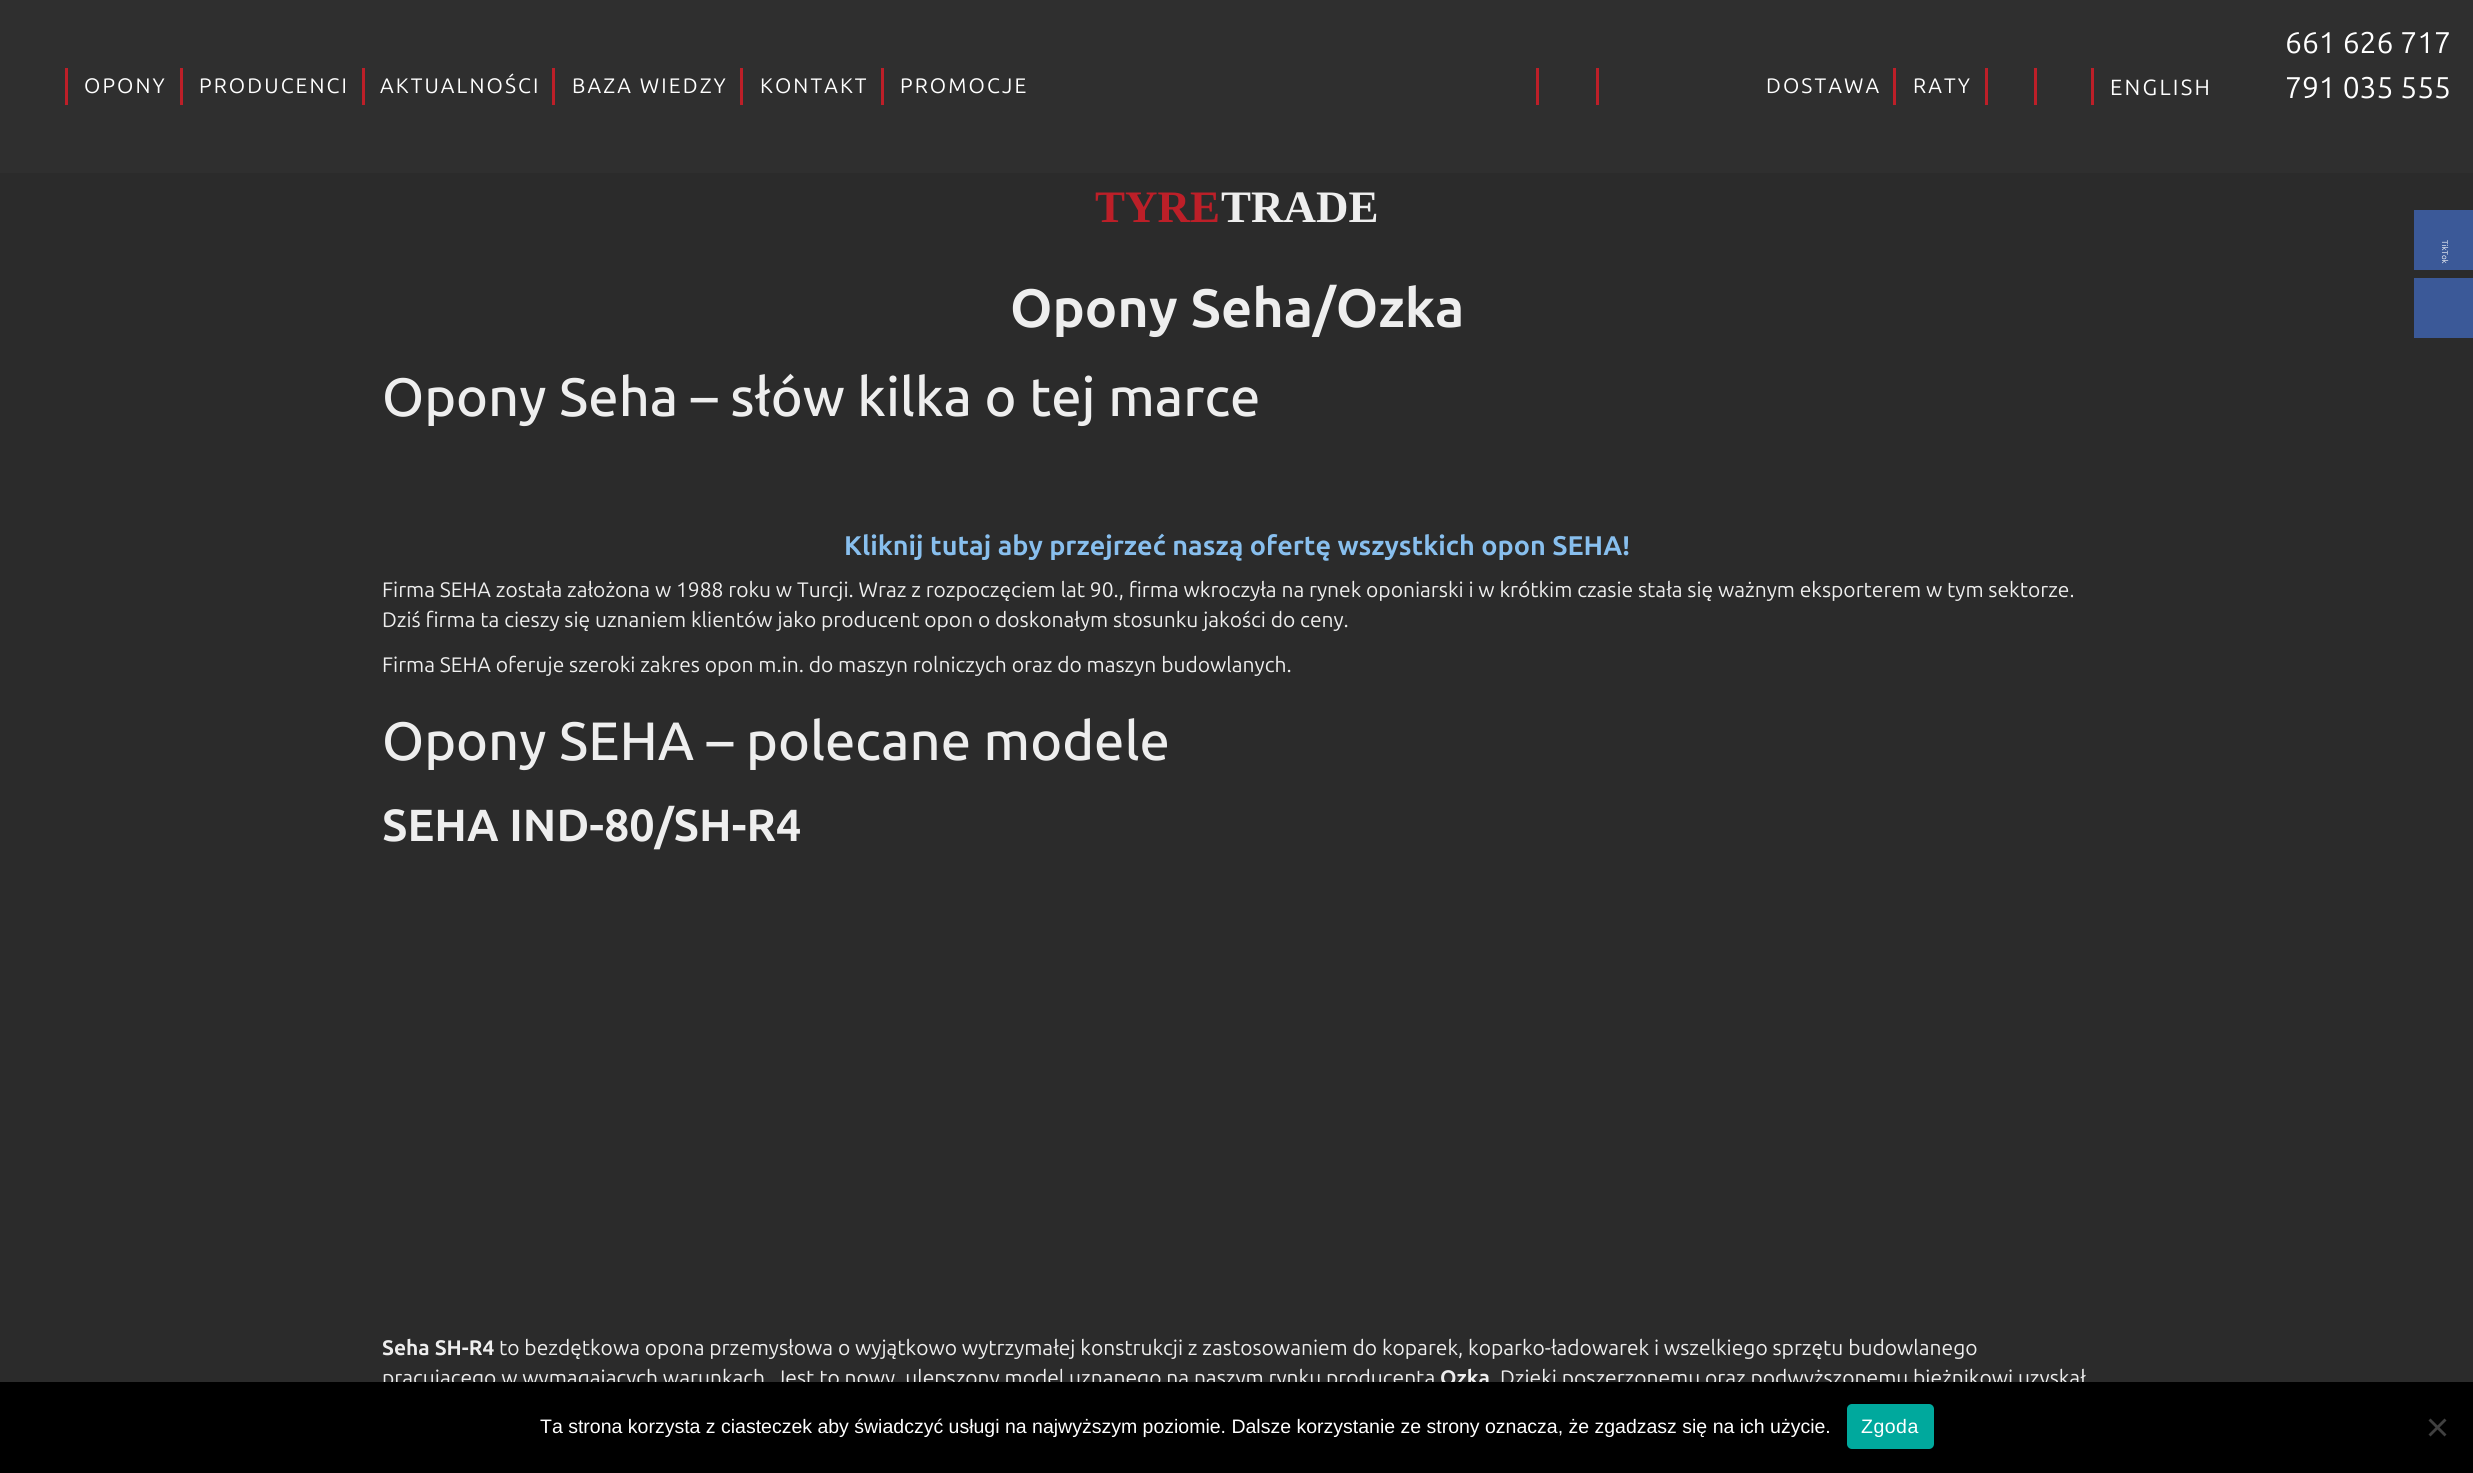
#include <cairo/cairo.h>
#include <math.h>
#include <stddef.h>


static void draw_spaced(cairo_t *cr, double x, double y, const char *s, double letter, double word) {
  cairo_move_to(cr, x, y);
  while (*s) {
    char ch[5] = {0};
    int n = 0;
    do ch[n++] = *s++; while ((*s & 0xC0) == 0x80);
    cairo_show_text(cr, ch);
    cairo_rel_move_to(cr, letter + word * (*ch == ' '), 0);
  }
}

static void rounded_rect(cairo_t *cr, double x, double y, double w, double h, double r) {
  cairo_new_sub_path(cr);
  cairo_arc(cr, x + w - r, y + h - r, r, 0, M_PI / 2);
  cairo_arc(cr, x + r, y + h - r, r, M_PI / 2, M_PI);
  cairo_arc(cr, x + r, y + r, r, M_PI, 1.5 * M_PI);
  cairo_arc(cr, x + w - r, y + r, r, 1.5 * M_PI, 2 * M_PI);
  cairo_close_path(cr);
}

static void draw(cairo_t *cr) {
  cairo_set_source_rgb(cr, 43 / 255.0, 43 / 255.0, 43 / 255.0);
  cairo_paint(cr);
  cairo_set_source_rgb(cr, 47 / 255.0, 47 / 255.0, 47 / 255.0);
  cairo_rectangle(cr, 0, 0, 2473, 173);
  cairo_fill(cr);
  cairo_set_source_rgb(cr, 189 / 255.0, 31 / 255.0, 40 / 255.0);
  cairo_rectangle(cr, 65, 68, 3, 37);
  cairo_fill(cr);
  cairo_rectangle(cr, 180, 68, 3, 37);
  cairo_fill(cr);
  cairo_rectangle(cr, 362, 68, 3, 37);
  cairo_fill(cr);
  cairo_rectangle(cr, 552, 68, 3, 37);
  cairo_fill(cr);
  cairo_rectangle(cr, 740, 68, 3, 37);
  cairo_fill(cr);
  cairo_rectangle(cr, 881, 68, 3, 37);
  cairo_fill(cr);
  cairo_rectangle(cr, 1536, 68, 3, 37);
  cairo_fill(cr);
  cairo_rectangle(cr, 1596, 68, 3, 37);
  cairo_fill(cr);
  cairo_rectangle(cr, 1893, 68, 3, 37);
  cairo_fill(cr);
  cairo_rectangle(cr, 1985, 68, 3, 37);
  cairo_fill(cr);
  cairo_rectangle(cr, 2034, 68, 3, 37);
  cairo_fill(cr);
  cairo_rectangle(cr, 2091, 68, 3, 37);
  cairo_fill(cr);
  cairo_set_source_rgb(cr, 59 / 255.0, 89 / 255.0, 152 / 255.0);
  cairo_rectangle(cr, 2414, 210, 59, 60);
  cairo_fill(cr);
  cairo_rectangle(cr, 2414, 278, 59, 60);
  cairo_fill(cr);
  cairo_select_font_face(cr, "Ubuntu", CAIRO_FONT_SLANT_NORMAL, CAIRO_FONT_WEIGHT_NORMAL);
  cairo_set_font_size(cr, 21);
  cairo_set_source_rgb(cr, 1, 1, 1);
  draw_spaced(cr, 84, 93, "OPONY", 2.1, 0);
  draw_spaced(cr, 199, 93, "PRODUCENCI", 2.1, 0);
  draw_spaced(cr, 380, 93, "AKTUALNOŚCI", 2.1, 0);
  draw_spaced(cr, 572, 93, "BAZA WIEDZY", 2.1, 0);
  draw_spaced(cr, 760, 93, "KONTAKT", 2.1, 0);
  draw_spaced(cr, 900, 93, "PROMOCJE", 2.1, 0);
  draw_spaced(cr, 1766, 93, "DOSTAWA", 2.1, 0);
  draw_spaced(cr, 1913, 93, "RATY", 2.1, 0);
  cairo_set_font_size(cr, 22);
  draw_spaced(cr, 2110, 95, "ENGLISH", 2.25, 0);
  cairo_set_font_size(cr, 30);
  cairo_move_to(cr, 2285, 53);
  cairo_show_text(cr, "661 626 717");
  cairo_move_to(cr, 2285, 98);
  cairo_show_text(cr, "791 035 555");
  cairo_select_font_face(cr, "Liberation Serif", CAIRO_FONT_SLANT_NORMAL, CAIRO_FONT_WEIGHT_BOLD);
  cairo_set_font_size(cr, 45);
  cairo_set_source_rgb(cr, 189 / 255.0, 31 / 255.0, 40 / 255.0);
  cairo_move_to(cr, 1095, 222);
  cairo_show_text(cr, "TYRE");
  cairo_set_source_rgb(cr, 238 / 255.0, 238 / 255.0, 238 / 255.0);
  cairo_move_to(cr, 1221, 222);
  cairo_show_text(cr, "TRADE");
  cairo_select_font_face(cr, "Ubuntu", CAIRO_FONT_SLANT_NORMAL, CAIRO_FONT_WEIGHT_NORMAL);
  cairo_set_font_size(cr, 8);
  cairo_set_source_rgb(cr, 1, 1, 1);
  cairo_save(cr);
  cairo_translate(cr, 2442, 240);
  cairo_rotate(cr, 90 * M_PI / 180);
  cairo_move_to(cr, 0, 0);
  cairo_show_text(cr, "TikTok");
  cairo_restore(cr);
  cairo_select_font_face(cr, "Ubuntu", CAIRO_FONT_SLANT_NORMAL, CAIRO_FONT_WEIGHT_BOLD);
  cairo_set_font_size(cr, 54);
  cairo_set_source_rgb(cr, 238 / 255.0, 238 / 255.0, 238 / 255.0);
  cairo_move_to(cr, 1010, 327);
  cairo_show_text(cr, "Opony Seha/Ozka");
  cairo_select_font_face(cr, "Ubuntu Medium", CAIRO_FONT_SLANT_NORMAL, CAIRO_FONT_WEIGHT_NORMAL);
  cairo_move_to(cr, 382, 416);
  cairo_show_text(cr, "Opony Seha – słów kilka o tej marce");
  cairo_select_font_face(cr, "Ubuntu", CAIRO_FONT_SLANT_NORMAL, CAIRO_FONT_WEIGHT_BOLD);
  cairo_set_font_size(cr, 27);
  cairo_set_source_rgb(cr, 136 / 255.0, 191 / 255.0, 238 / 255.0);
  cairo_move_to(cr, 844, 555);
  cairo_show_text(cr, "Kliknij tutaj aby przejrzeć naszą ofertę wszystkich opon SEHA!");
  cairo_select_font_face(cr, "Ubuntu", CAIRO_FONT_SLANT_NORMAL, CAIRO_FONT_WEIGHT_NORMAL);
  cairo_set_font_size(cr, 21);
  cairo_set_source_rgb(cr, 238 / 255.0, 238 / 255.0, 238 / 255.0);
  cairo_move_to(cr, 382, 597);
  cairo_show_text(cr, "Firma SEHA została założona w 1988 roku w Turcji. Wraz z rozpoczęciem lat 90., firma wkroczyła na rynek oponiarski i w krótkim czasie stała się ważnym eksporterem w tym sektorze.");
  cairo_move_to(cr, 382, 627);
  cairo_show_text(cr, "Dziś firma ta cieszy się uznaniem klientów jako producent opon o doskonałym stosunku jakości do ceny.");
  cairo_move_to(cr, 382, 672);
  cairo_show_text(cr, "Firma SEHA oferuje szeroki zakres opon m.in. do maszyn rolniczych oraz do maszyn budowlanych.");
  cairo_select_font_face(cr, "Ubuntu Medium", CAIRO_FONT_SLANT_NORMAL, CAIRO_FONT_WEIGHT_NORMAL);
  cairo_set_font_size(cr, 54);
  cairo_move_to(cr, 382, 760);
  cairo_show_text(cr, "Opony SEHA – polecane modele");
  cairo_select_font_face(cr, "Ubuntu", CAIRO_FONT_SLANT_NORMAL, CAIRO_FONT_WEIGHT_BOLD);
  cairo_set_font_size(cr, 45);
  cairo_move_to(cr, 382, 841);
  cairo_show_text(cr, "SEHA IND-80/SH-R4");
  cairo_set_font_size(cr, 21);
  cairo_move_to(cr, 382, 1355);
  cairo_show_text(cr, "Seha SH-R4");
  cairo_select_font_face(cr, "Ubuntu", CAIRO_FONT_SLANT_NORMAL, CAIRO_FONT_WEIGHT_NORMAL);
  cairo_move_to(cr, 499, 1355);
  cairo_show_text(cr, "to bezdętkowa opona przemysłowa o wyjątkowo wytrzymałej konstrukcji z zastosowaniem do koparek, koparko-ładowarek i wszelkiego sprzętu budowlanego");
  cairo_move_to(cr, 382, 1385);
  cairo_show_text(cr, "pracującego w wymagających warunkach. Jest to nowy, ulepszony model uznanego na naszym rynku producenta");
  cairo_select_font_face(cr, "Ubuntu", CAIRO_FONT_SLANT_NORMAL, CAIRO_FONT_WEIGHT_BOLD);
  cairo_move_to(cr, 1440, 1385);
  cairo_show_text(cr, "Ozka");
  cairo_select_font_face(cr, "Ubuntu", CAIRO_FONT_SLANT_NORMAL, CAIRO_FONT_WEIGHT_NORMAL);
  cairo_move_to(cr, 1500, 1385);
  cairo_show_text(cr, "Dzięki poszerzonemu oraz podwyższonemu bieżnikowi uzyskał");
  cairo_set_source_rgb(cr, 0, 0, 0);
  cairo_rectangle(cr, 0, 1382, 2473, 91);
  cairo_fill(cr);
  cairo_select_font_face(cr, "Liberation Sans", CAIRO_FONT_SLANT_NORMAL, CAIRO_FONT_WEIGHT_NORMAL);
  cairo_set_font_size(cr, 19.5);
  cairo_set_source_rgb(cr, 1, 1, 1);
  cairo_move_to(cr, 540, 1433);
  cairo_show_text(cr, "Ta strona korzysta z ciasteczek aby świadczyć usługi na najwyższym poziomie. Dalsze korzystanie ze strony oznacza, że zgadzasz się na ich użycie.");
  cairo_set_source_rgb(cr, 0, 169 / 255.0, 157 / 255.0);
  rounded_rect(cr, 1847, 1404, 87, 45, 5);
  cairo_fill(cr);
  cairo_set_source_rgb(cr, 1, 1, 1);
  draw_spaced(cr, 1861, 1433, "Zgoda", 0.5, 0);
  cairo_set_source_rgb(cr, 64 / 255.0, 64 / 255.0, 64 / 255.0);
  cairo_new_path(cr);
  cairo_move_to(cr, 2444.5, 1418.5);
  cairo_line_to(cr, 2446.5, 1420.5);
  cairo_line_to(cr, 2430.5, 1436.5);
  cairo_line_to(cr, 2428.5, 1434.5);
  cairo_close_path(cr);
  cairo_fill(cr);
  cairo_new_path(cr);
  cairo_move_to(cr, 2428.5, 1420.5);
  cairo_line_to(cr, 2430.5, 1418.5);
  cairo_line_to(cr, 2446.5, 1434.5);
  cairo_line_to(cr, 2444.5, 1436.5);
  cairo_close_path(cr);
  cairo_fill(cr);
}

int main(void) {
  cairo_surface_t *surface = cairo_image_surface_create(CAIRO_FORMAT_RGB24, 2473, 1473);
  cairo_t *cr = cairo_create(surface);
  cairo_font_options_t *options = cairo_font_options_create();
  cairo_font_options_set_hint_metrics(options, CAIRO_HINT_METRICS_OFF);
  cairo_font_options_set_hint_style(options, CAIRO_HINT_STYLE_NONE);
  cairo_set_font_options(cr, options);
  cairo_set_miter_limit(cr, 4);
  draw(cr);
  cairo_surface_write_to_png(surface, "out.png");
  cairo_font_options_destroy(options);
  cairo_destroy(cr);
  cairo_surface_destroy(surface);
  return 0;
}
